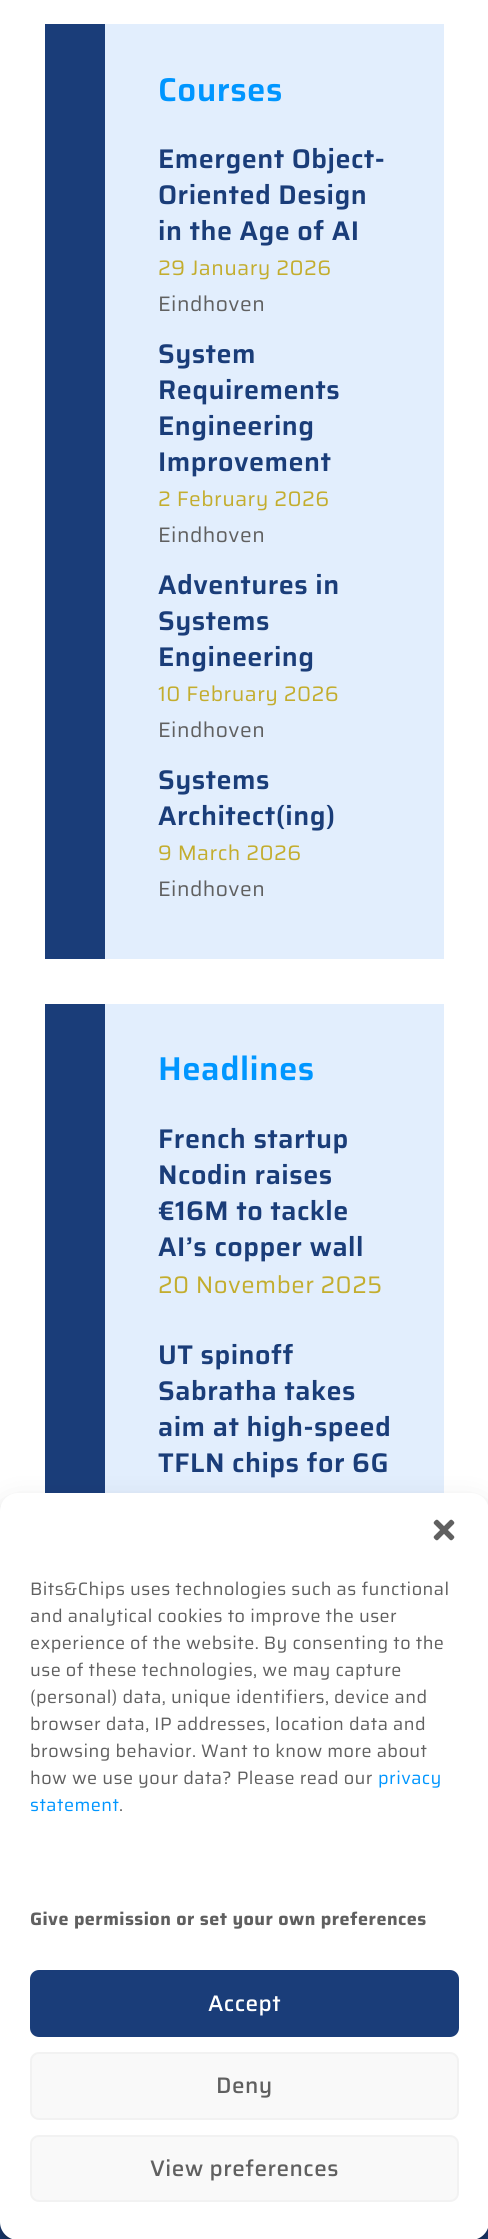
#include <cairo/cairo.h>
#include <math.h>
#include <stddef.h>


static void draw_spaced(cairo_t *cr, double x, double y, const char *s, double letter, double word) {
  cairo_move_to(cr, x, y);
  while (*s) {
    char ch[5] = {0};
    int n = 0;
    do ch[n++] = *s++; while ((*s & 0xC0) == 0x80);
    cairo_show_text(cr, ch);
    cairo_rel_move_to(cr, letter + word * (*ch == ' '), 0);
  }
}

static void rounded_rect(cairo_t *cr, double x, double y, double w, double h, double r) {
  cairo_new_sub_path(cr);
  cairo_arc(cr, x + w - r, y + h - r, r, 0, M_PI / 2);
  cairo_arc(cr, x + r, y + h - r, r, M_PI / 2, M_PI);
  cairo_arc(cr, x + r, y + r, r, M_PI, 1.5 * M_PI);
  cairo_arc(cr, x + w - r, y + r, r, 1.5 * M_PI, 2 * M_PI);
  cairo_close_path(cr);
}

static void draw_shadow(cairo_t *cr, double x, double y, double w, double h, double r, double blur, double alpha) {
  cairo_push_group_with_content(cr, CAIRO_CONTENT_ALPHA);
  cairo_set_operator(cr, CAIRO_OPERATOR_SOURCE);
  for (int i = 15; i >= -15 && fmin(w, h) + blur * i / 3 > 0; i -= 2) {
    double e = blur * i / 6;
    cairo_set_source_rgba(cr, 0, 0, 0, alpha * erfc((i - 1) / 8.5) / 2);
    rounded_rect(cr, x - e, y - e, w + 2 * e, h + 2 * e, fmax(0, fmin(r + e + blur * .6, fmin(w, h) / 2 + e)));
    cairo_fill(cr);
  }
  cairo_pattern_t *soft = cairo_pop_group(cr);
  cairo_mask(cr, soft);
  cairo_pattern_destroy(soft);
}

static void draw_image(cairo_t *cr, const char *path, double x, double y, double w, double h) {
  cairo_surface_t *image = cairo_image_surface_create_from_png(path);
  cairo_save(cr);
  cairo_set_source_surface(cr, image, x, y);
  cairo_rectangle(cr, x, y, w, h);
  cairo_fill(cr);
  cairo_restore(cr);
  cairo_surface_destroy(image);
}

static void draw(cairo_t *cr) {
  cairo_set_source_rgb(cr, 1, 1, 1);
  cairo_paint(cr);
  cairo_set_source_rgb(cr, 226 / 255.0, 238 / 255.0, 253 / 255.0);
  cairo_rectangle(cr, 105, 24, 339, 935);
  cairo_fill(cr);
  cairo_set_source_rgb(cr, 26 / 255.0, 61 / 255.0, 121 / 255.0);
  cairo_rectangle(cr, 45, 24, 60, 935);
  cairo_fill(cr);
  cairo_set_source_rgb(cr, 226 / 255.0, 238 / 255.0, 253 / 255.0);
  cairo_rectangle(cr, 105, 1004, 339, 489);
  cairo_fill(cr);
  cairo_set_source_rgb(cr, 26 / 255.0, 61 / 255.0, 121 / 255.0);
  cairo_rectangle(cr, 45, 1004, 60, 489);
  cairo_fill(cr);
  cairo_rectangle(cr, 0, 2222, 488, 17);
  cairo_fill(cr);
  cairo_set_source_rgb(cr, 0, 0, 0);
  draw_shadow(cr, 0, 1502, 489, 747, 18, 4.5, 0.23);
  draw_shadow(cr, 0, 1508, 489, 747, 18, 15, 0.19);
  cairo_set_source_rgb(cr, 1, 1, 1);
  rounded_rect(cr, 0, 1493, 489, 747, 18);
  cairo_fill(cr);
  draw_image(cr, "images/1.png", 433, 1519, 22, 22);
  cairo_set_source_rgb(cr, 26 / 255.0, 61 / 255.0, 121 / 255.0);
  rounded_rect(cr, 31, 1971, 427, 65, 8);
  cairo_fill_preserve(cr);
  cairo_stroke(cr);
  cairo_set_source_rgb(cr, 249 / 255.0, 249 / 255.0, 249 / 255.0);
  rounded_rect(cr, 31, 2053, 427, 66, 8);
  cairo_fill_preserve(cr);
  cairo_set_source_rgb(cr, 242 / 255.0, 242 / 255.0, 242 / 255.0);
  cairo_stroke(cr);
  cairo_set_source_rgb(cr, 249 / 255.0, 249 / 255.0, 249 / 255.0);
  rounded_rect(cr, 31, 2136, 427, 65, 8);
  cairo_fill_preserve(cr);
  cairo_set_source_rgb(cr, 242 / 255.0, 242 / 255.0, 242 / 255.0);
  cairo_stroke(cr);
  cairo_select_font_face(cr, "Saira SemiBold", CAIRO_FONT_SLANT_NORMAL, CAIRO_FONT_WEIGHT_NORMAL);
  cairo_set_font_size(cr, 33);
  cairo_set_source_rgb(cr, 0, 150 / 255.0, 1);
  draw_spaced(cr, 158, 101, "Courses", 0.45, 0);
  cairo_set_font_size(cr, 27);
  cairo_set_source_rgb(cr, 26 / 255.0, 61 / 255.0, 121 / 255.0);
  draw_spaced(cr, 158, 168, "Emergent Object-", 0.45, 0);
  draw_spaced(cr, 158, 204, "Oriented Design", 0.45, 0);
  draw_spaced(cr, 158, 240, "in the Age of AI", 0.45, 0);
  cairo_select_font_face(cr, "Saira", CAIRO_FONT_SLANT_NORMAL, CAIRO_FONT_WEIGHT_NORMAL);
  cairo_set_font_size(cr, 21);
  cairo_set_source_rgb(cr, 195 / 255.0, 173 / 255.0, 46 / 255.0);
  draw_spaced(cr, 158, 275, "29 January 2026", 0.45, 0);
  cairo_set_source_rgb(cr, 96 / 255.0, 96 / 255.0, 96 / 255.0);
  draw_spaced(cr, 158, 311, "Eindhoven", 0.45, 0);
  cairo_select_font_face(cr, "Saira SemiBold", CAIRO_FONT_SLANT_NORMAL, CAIRO_FONT_WEIGHT_NORMAL);
  cairo_set_font_size(cr, 27);
  cairo_set_source_rgb(cr, 26 / 255.0, 61 / 255.0, 121 / 255.0);
  draw_spaced(cr, 158, 363, "System", 0.45, 0);
  draw_spaced(cr, 158, 399, "Requirements", 0.45, 0);
  draw_spaced(cr, 158, 435, "Engineering", 0.45, 0);
  draw_spaced(cr, 158, 471, "Improvement", 0.45, 0);
  cairo_select_font_face(cr, "Saira", CAIRO_FONT_SLANT_NORMAL, CAIRO_FONT_WEIGHT_NORMAL);
  cairo_set_font_size(cr, 21);
  cairo_set_source_rgb(cr, 195 / 255.0, 173 / 255.0, 46 / 255.0);
  draw_spaced(cr, 158, 506, "2 February 2026", 0.45, 0);
  cairo_set_source_rgb(cr, 96 / 255.0, 96 / 255.0, 96 / 255.0);
  draw_spaced(cr, 158, 542, "Eindhoven", 0.45, 0);
  cairo_select_font_face(cr, "Saira SemiBold", CAIRO_FONT_SLANT_NORMAL, CAIRO_FONT_WEIGHT_NORMAL);
  cairo_set_font_size(cr, 27);
  cairo_set_source_rgb(cr, 26 / 255.0, 61 / 255.0, 121 / 255.0);
  draw_spaced(cr, 158, 594, "Adventures in", 0.45, 0);
  draw_spaced(cr, 158, 630, "Systems", 0.45, 0);
  draw_spaced(cr, 158, 666, "Engineering", 0.45, 0);
  cairo_select_font_face(cr, "Saira", CAIRO_FONT_SLANT_NORMAL, CAIRO_FONT_WEIGHT_NORMAL);
  cairo_set_font_size(cr, 21);
  cairo_set_source_rgb(cr, 195 / 255.0, 173 / 255.0, 46 / 255.0);
  draw_spaced(cr, 158, 701, "10 February 2026", 0.45, 0);
  cairo_set_source_rgb(cr, 96 / 255.0, 96 / 255.0, 96 / 255.0);
  draw_spaced(cr, 158, 737, "Eindhoven", 0.45, 0);
  cairo_select_font_face(cr, "Saira SemiBold", CAIRO_FONT_SLANT_NORMAL, CAIRO_FONT_WEIGHT_NORMAL);
  cairo_set_font_size(cr, 27);
  cairo_set_source_rgb(cr, 26 / 255.0, 61 / 255.0, 121 / 255.0);
  draw_spaced(cr, 158, 789, "Systems", 0.45, 0);
  draw_spaced(cr, 158, 825, "Architect(ing)", 0.45, 0);
  cairo_select_font_face(cr, "Saira", CAIRO_FONT_SLANT_NORMAL, CAIRO_FONT_WEIGHT_NORMAL);
  cairo_set_font_size(cr, 21);
  cairo_set_source_rgb(cr, 195 / 255.0, 173 / 255.0, 46 / 255.0);
  draw_spaced(cr, 158, 860, "9 March 2026", 0.45, 0);
  cairo_set_source_rgb(cr, 96 / 255.0, 96 / 255.0, 96 / 255.0);
  draw_spaced(cr, 158, 896, "Eindhoven", 0.45, 0);
  cairo_select_font_face(cr, "Saira SemiBold", CAIRO_FONT_SLANT_NORMAL, CAIRO_FONT_WEIGHT_NORMAL);
  cairo_set_font_size(cr, 33);
  cairo_set_source_rgb(cr, 0, 150 / 255.0, 1);
  draw_spaced(cr, 158, 1080, "Headlines", 0.45, 0);
  cairo_set_font_size(cr, 27);
  cairo_set_source_rgb(cr, 26 / 255.0, 61 / 255.0, 121 / 255.0);
  draw_spaced(cr, 158, 1148, "French startup", 0.45, 0);
  draw_spaced(cr, 158, 1184, "Ncodin raises", 0.45, 0);
  draw_spaced(cr, 158, 1220, "€16M to tackle", 0.45, 0);
  draw_spaced(cr, 158, 1256, "AI’s copper wall", 0.45, 0);
  cairo_select_font_face(cr, "Saira", CAIRO_FONT_SLANT_NORMAL, CAIRO_FONT_WEIGHT_NORMAL);
  cairo_set_font_size(cr, 24);
  cairo_set_source_rgb(cr, 195 / 255.0, 173 / 255.0, 46 / 255.0);
  draw_spaced(cr, 158, 1293, "20 November 2025", 0.45, 0);
  cairo_select_font_face(cr, "Saira SemiBold", CAIRO_FONT_SLANT_NORMAL, CAIRO_FONT_WEIGHT_NORMAL);
  cairo_set_font_size(cr, 27);
  cairo_set_source_rgb(cr, 26 / 255.0, 61 / 255.0, 121 / 255.0);
  draw_spaced(cr, 158, 1364, "UT spinoff", 0.45, 0);
  draw_spaced(cr, 158, 1400, "Sabratha takes", 0.45, 0);
  draw_spaced(cr, 158, 1436, "aim at high-speed", 0.45, 0);
  draw_spaced(cr, 158, 1472, "TFLN chips for 6G", 0.45, 0);
  cairo_select_font_face(cr, "Saira", CAIRO_FONT_SLANT_NORMAL, CAIRO_FONT_WEIGHT_NORMAL);
  cairo_set_font_size(cr, 18);
  cairo_set_source_rgb(cr, 96 / 255.0, 96 / 255.0, 96 / 255.0);
  draw_spaced(cr, 30, 1595, "Bits&Chips uses technologies such as functional", 0.45, 0);
  draw_spaced(cr, 30, 1622, "and analytical cookies to improve the user", 0.45, 0);
  draw_spaced(cr, 30, 1649, "experience of the website. By consenting to the", 0.45, 0);
  draw_spaced(cr, 30, 1676, "use of these technologies, we may capture", 0.45, 0);
  draw_spaced(cr, 30, 1703, "(personal) data, unique identifiers, device and", 0.45, 0);
  draw_spaced(cr, 30, 1730, "browser data, IP addresses, location data and", 0.45, 0);
  draw_spaced(cr, 30, 1757, "browsing behavior. Want to know more about", 0.45, 0);
  draw_spaced(cr, 30, 1784, "how we use your data? Please read our", 0.45, 0);
  cairo_set_source_rgb(cr, 0, 150 / 255.0, 1);
  draw_spaced(cr, 378, 1784, "privacy", 0.45, 0);
  draw_spaced(cr, 30, 1811, "statement", 0.45, 0);
  cairo_set_source_rgb(cr, 96 / 255.0, 96 / 255.0, 96 / 255.0);
  draw_spaced(cr, 119, 1811, ".", 0.45, 0);
  cairo_select_font_face(cr, "Saira", CAIRO_FONT_SLANT_NORMAL, CAIRO_FONT_WEIGHT_BOLD);
  draw_spaced(cr, 30, 1925, "Give permission or set your own preferences", 0.45, 0);
  cairo_select_font_face(cr, "Saira Medium", CAIRO_FONT_SLANT_NORMAL, CAIRO_FONT_WEIGHT_NORMAL);
  cairo_set_font_size(cr, 22.5);
  cairo_set_source_rgb(cr, 1, 1, 1);
  draw_spaced(cr, 208, 2011, "Accept", 0.45, 0);
  cairo_set_source_rgb(cr, 96 / 255.0, 96 / 255.0, 96 / 255.0);
  draw_spaced(cr, 216, 2093, "Deny", 0.45, 0);
  draw_spaced(cr, 150, 2176, "View preferences", 0.45, 0);
}

int main(void) {
  cairo_surface_t *surface = cairo_image_surface_create(CAIRO_FORMAT_RGB24, 488, 2239);
  cairo_t *cr = cairo_create(surface);
  cairo_font_options_t *options = cairo_font_options_create();
  cairo_font_options_set_hint_metrics(options, CAIRO_HINT_METRICS_OFF);
  cairo_font_options_set_hint_style(options, CAIRO_HINT_STYLE_NONE);
  cairo_set_font_options(cr, options);
  cairo_set_miter_limit(cr, 4);
  draw(cr);
  cairo_surface_write_to_png(surface, "out.png");
  cairo_font_options_destroy(options);
  cairo_destroy(cr);
  cairo_surface_destroy(surface);
  return 0;
}
